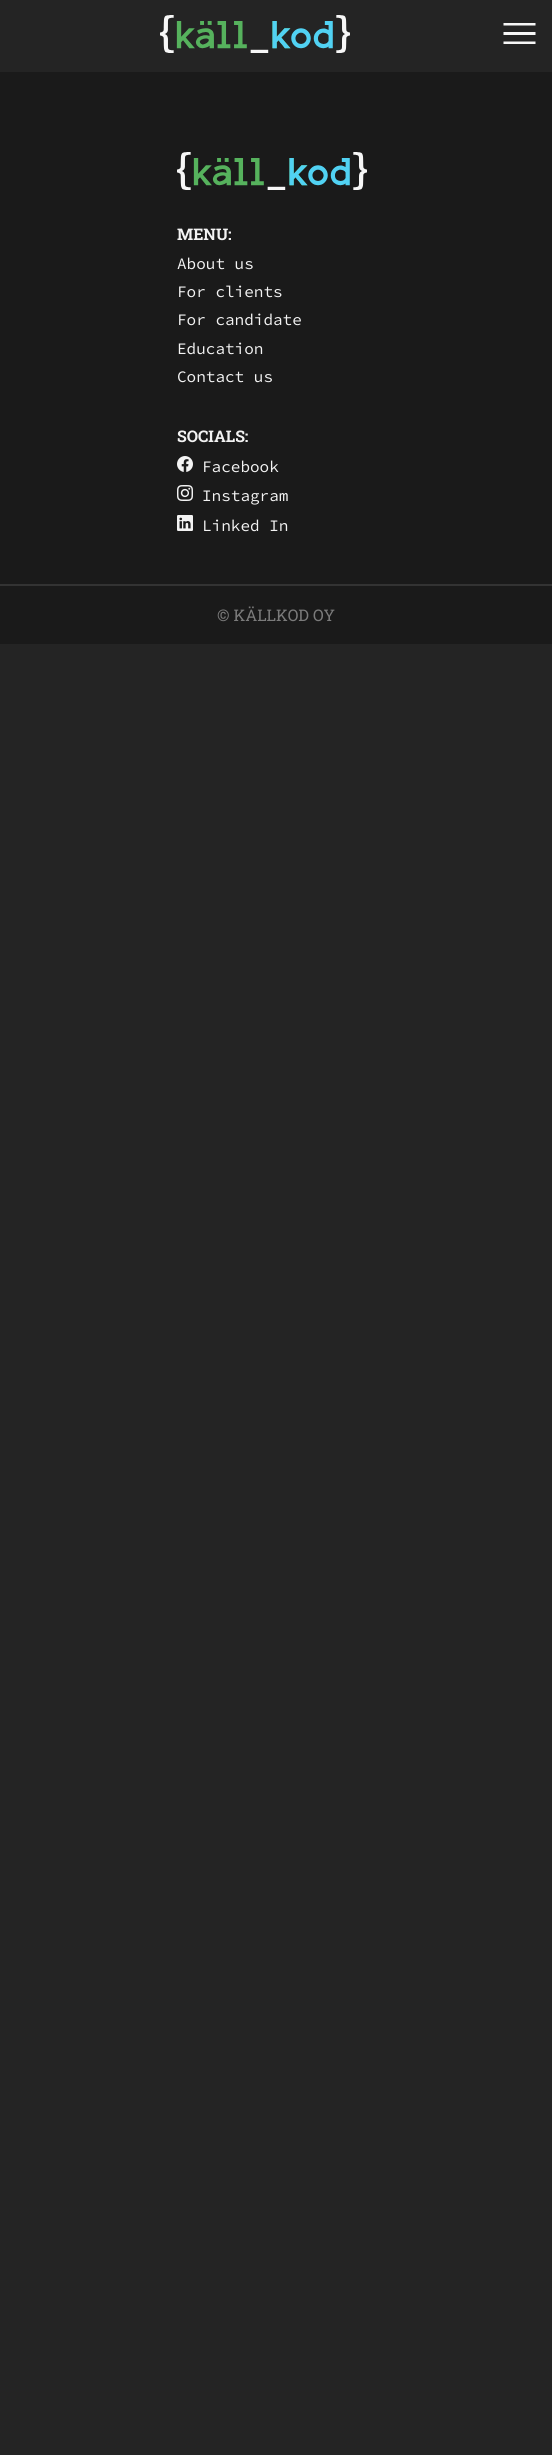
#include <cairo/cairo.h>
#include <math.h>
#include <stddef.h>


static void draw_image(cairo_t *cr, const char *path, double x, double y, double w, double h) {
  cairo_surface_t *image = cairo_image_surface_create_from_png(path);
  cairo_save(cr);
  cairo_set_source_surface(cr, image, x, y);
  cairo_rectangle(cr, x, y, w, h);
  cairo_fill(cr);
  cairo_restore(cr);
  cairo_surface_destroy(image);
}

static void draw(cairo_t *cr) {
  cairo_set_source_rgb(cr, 36 / 255.0, 36 / 255.0, 36 / 255.0);
  cairo_paint(cr);
  draw_image(cr, "images/1.png", 160, 15, 190, 38);
  cairo_set_source_rgb(cr, 247 / 255.0, 247 / 255.0, 247 / 255.0);
  cairo_new_path(cr);
  cairo_move_to(cr, 503.5, 44);
  cairo_line_to(cr, 503.5, 41.5);
  cairo_line_to(cr, 535.5, 41.5);
  cairo_line_to(cr, 535.5, 44);
  cairo_close_path(cr);
  cairo_move_to(cr, 503.5, 35);
  cairo_line_to(cr, 503.5, 32);
  cairo_line_to(cr, 535.5, 32);
  cairo_line_to(cr, 535.5, 35);
  cairo_close_path(cr);
  cairo_move_to(cr, 503.5, 25.5);
  cairo_line_to(cr, 503.5, 23);
  cairo_line_to(cr, 535.5, 23);
  cairo_line_to(cr, 535.5, 25.5);
  cairo_close_path(cr);
  cairo_fill(cr);
  cairo_set_source_rgb(cr, 26 / 255.0, 26 / 255.0, 26 / 255.0);
  cairo_rectangle(cr, 0, 72, 552, 572);
  cairo_fill(cr);
  draw_image(cr, "images/2.png", 177, 152, 190, 38);
  draw_image(cr, "images/3.png", 177, 456, 16, 16);
  draw_image(cr, "images/4.png", 177, 485, 16, 16);
  draw_image(cr, "images/5.png", 177, 515, 16, 16);
  cairo_set_source_rgb(cr, 51 / 255.0, 51 / 255.0, 51 / 255.0);
  cairo_rectangle(cr, 0, 584, 552, 2);
  cairo_fill(cr);
  cairo_select_font_face(cr, "Roboto Slab", CAIRO_FONT_SLANT_NORMAL, CAIRO_FONT_WEIGHT_BOLD);
  cairo_set_font_size(cr, 16);
  cairo_set_source_rgb(cr, 243 / 255.0, 243 / 255.0, 243 / 255.0);
  cairo_move_to(cr, 177, 240);
  cairo_show_text(cr, "MENU:");
  cairo_select_font_face(cr, "Source Code Pro", CAIRO_FONT_SLANT_NORMAL, CAIRO_FONT_WEIGHT_NORMAL);
  cairo_move_to(cr, 177, 269);
  cairo_show_text(cr, "About us");
  cairo_move_to(cr, 177, 297);
  cairo_show_text(cr, "For clients");
  cairo_move_to(cr, 177, 325);
  cairo_show_text(cr, "For candidate");
  cairo_move_to(cr, 177, 354);
  cairo_show_text(cr, "Education");
  cairo_move_to(cr, 177, 382);
  cairo_show_text(cr, "Contact us");
  cairo_select_font_face(cr, "Roboto Slab", CAIRO_FONT_SLANT_NORMAL, CAIRO_FONT_WEIGHT_BOLD);
  cairo_move_to(cr, 177, 442);
  cairo_show_text(cr, "SOCIALS:");
  cairo_select_font_face(cr, "Source Code Pro", CAIRO_FONT_SLANT_NORMAL, CAIRO_FONT_WEIGHT_NORMAL);
  cairo_move_to(cr, 202, 472);
  cairo_show_text(cr, "Facebook");
  cairo_move_to(cr, 202, 501);
  cairo_show_text(cr, "Instagram");
  cairo_move_to(cr, 202, 531);
  cairo_show_text(cr, "Linked In");
  cairo_select_font_face(cr, "Roboto Slab", CAIRO_FONT_SLANT_NORMAL, CAIRO_FONT_WEIGHT_NORMAL);
  cairo_set_source_rgb(cr, 123 / 255.0, 123 / 255.0, 123 / 255.0);
  cairo_move_to(cr, 217, 621);
  cairo_show_text(cr, "© KÄLLKOD OY");
}

int main(void) {
  cairo_surface_t *surface = cairo_image_surface_create(CAIRO_FORMAT_RGB24, 552, 2455);
  cairo_t *cr = cairo_create(surface);
  cairo_font_options_t *options = cairo_font_options_create();
  cairo_font_options_set_hint_metrics(options, CAIRO_HINT_METRICS_OFF);
  cairo_font_options_set_hint_style(options, CAIRO_HINT_STYLE_NONE);
  cairo_set_font_options(cr, options);
  cairo_set_miter_limit(cr, 4);
  draw(cr);
  cairo_surface_write_to_png(surface, "out.png");
  cairo_font_options_destroy(options);
  cairo_destroy(cr);
  cairo_surface_destroy(surface);
  return 0;
}
